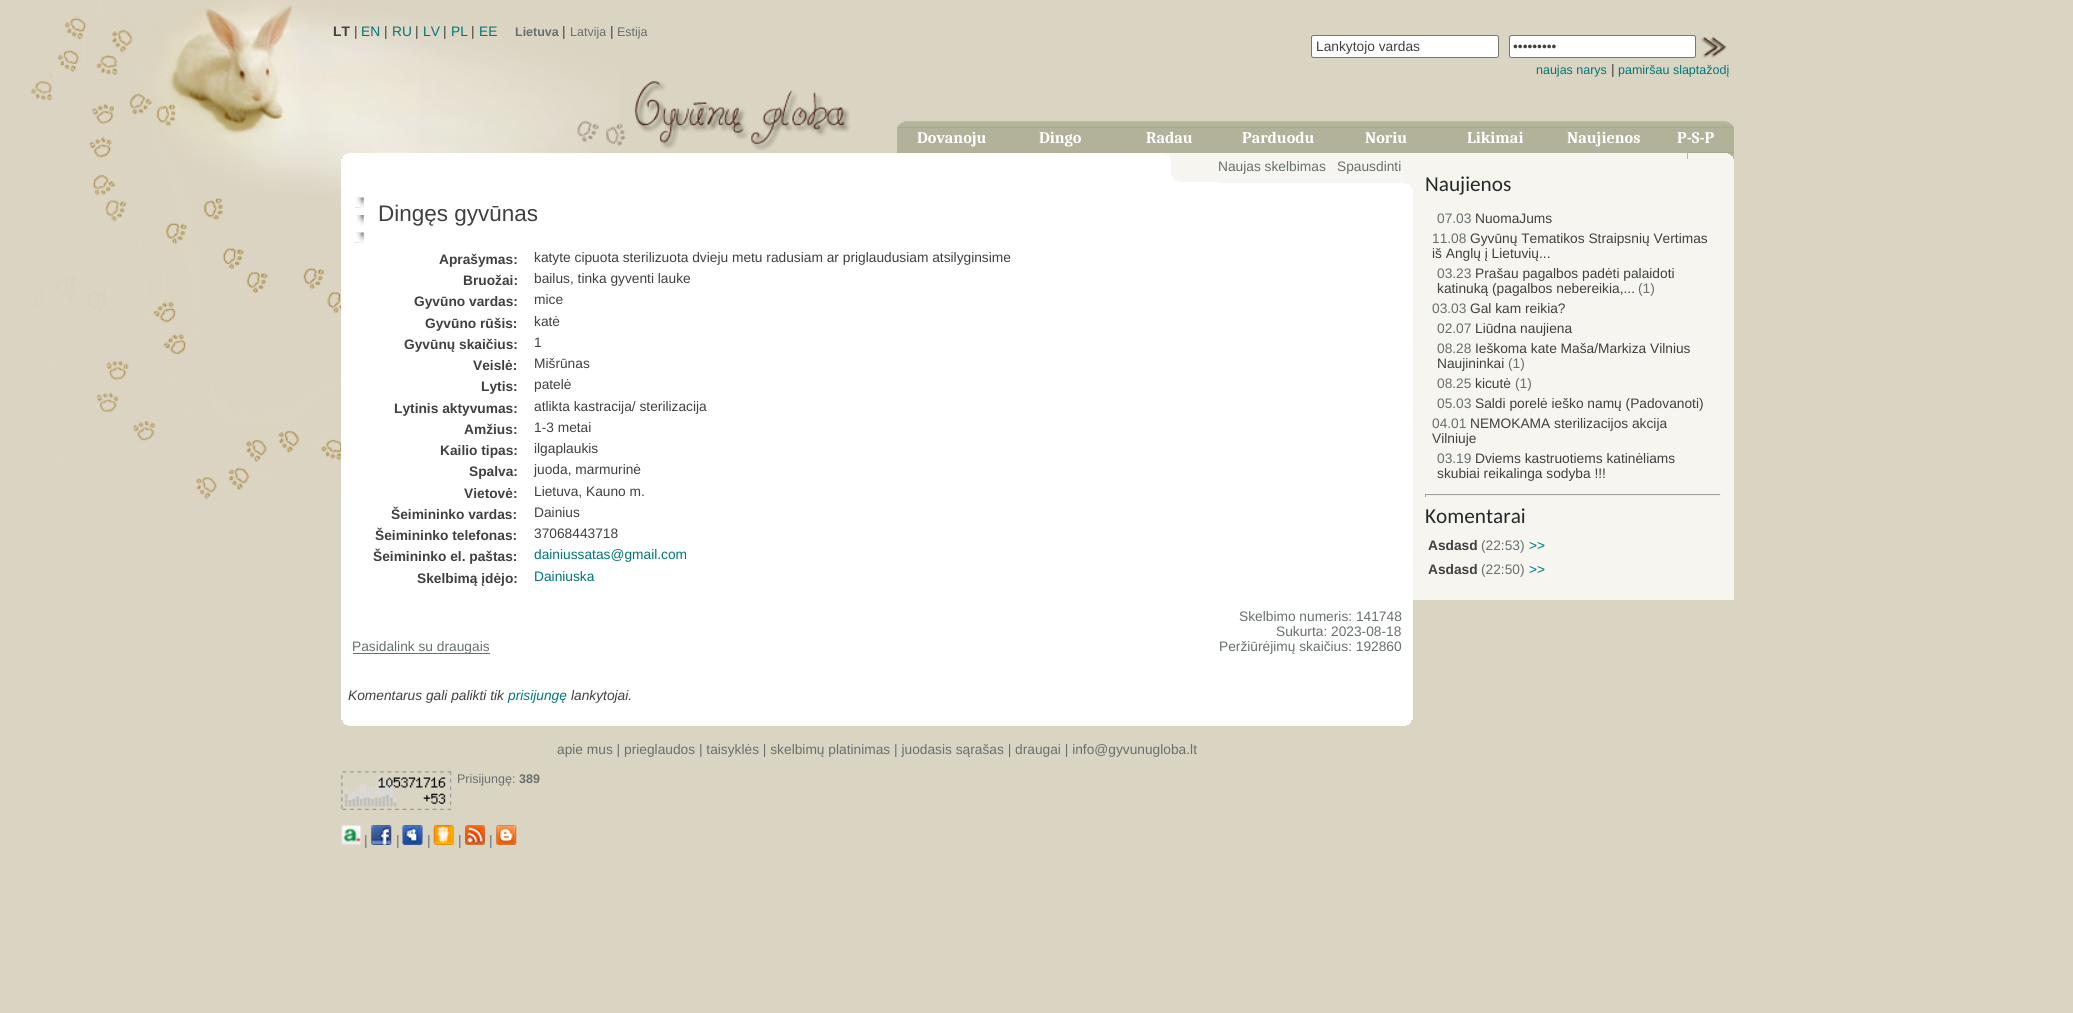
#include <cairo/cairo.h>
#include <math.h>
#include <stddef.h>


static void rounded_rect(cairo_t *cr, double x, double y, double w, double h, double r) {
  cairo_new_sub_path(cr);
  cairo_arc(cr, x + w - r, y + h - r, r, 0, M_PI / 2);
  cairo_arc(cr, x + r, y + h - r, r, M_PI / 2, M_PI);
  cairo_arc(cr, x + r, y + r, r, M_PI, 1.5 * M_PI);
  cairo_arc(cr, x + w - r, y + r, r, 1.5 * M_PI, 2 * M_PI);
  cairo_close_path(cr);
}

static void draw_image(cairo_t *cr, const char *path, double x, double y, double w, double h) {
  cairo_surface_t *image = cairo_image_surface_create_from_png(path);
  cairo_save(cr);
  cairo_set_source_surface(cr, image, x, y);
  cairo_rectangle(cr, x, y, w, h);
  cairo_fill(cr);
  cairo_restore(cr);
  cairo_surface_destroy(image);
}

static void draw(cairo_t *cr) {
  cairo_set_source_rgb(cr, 218 / 255.0, 213 / 255.0, 194 / 255.0);
  cairo_paint(cr);
  cairo_set_source_rgb(cr, 178 / 255.0, 177 / 255.0, 154 / 255.0);
  cairo_rectangle(cr, 898, 125, 835, 2);
  cairo_fill(cr);
  cairo_rectangle(cr, 1728, 153, 6, 6);
  cairo_fill(cr);
  draw_image(cr, "images/1.png", 31, 0, 589, 500);
  draw_image(cr, "images/2.png", 577, 81, 273, 70);
  cairo_set_source_rgb(cr, 1, 1, 1);
  rounded_rect(cr, 1311.5, 35.5, 187, 22, 2);
  cairo_fill_preserve(cr);
  cairo_set_source_rgb(cr, 118 / 255.0, 118 / 255.0, 118 / 255.0);
  cairo_set_line_width(cr, 1);
  cairo_stroke(cr);
  cairo_set_source_rgb(cr, 1, 1, 1);
  rounded_rect(cr, 1509.5, 35.5, 186, 22, 2);
  cairo_fill_preserve(cr);
  cairo_set_source_rgb(cr, 118 / 255.0, 118 / 255.0, 118 / 255.0);
  cairo_stroke(cr);
  draw_image(cr, "images/3.png", 1701, 37, 26, 21);
  draw_image(cr, "images/4.png", 903, 121, 825, 2);
  draw_image(cr, "images/5.png", 901, 122, 829, 2);
  draw_image(cr, "images/6.png", 900, 123, 832, 2);
  cairo_set_source_rgb(cr, 178 / 255.0, 177 / 255.0, 154 / 255.0);
  cairo_rectangle(cr, 897, 127, 837, 26);
  cairo_fill(cr);
  cairo_set_source_rgb(cr, 169 / 255.0, 169 / 255.0, 144 / 255.0);
  cairo_rectangle(cr, 898, 127, 835, 1);
  cairo_fill(cr);
  cairo_rectangle(cr, 1687, 152, 47, 1);
  cairo_fill(cr);
  cairo_set_source_rgb(cr, 1, 1, 1);
  cairo_rectangle(cr, 348, 153, 817, 1);
  cairo_fill(cr);
  cairo_set_source_rgb(cr, 246 / 255.0, 245 / 255.0, 239 / 255.0);
  cairo_rectangle(cr, 1165, 153, 6, 6);
  cairo_fill(cr);
  cairo_set_source_rgb(cr, 1, 1, 1);
  cairo_rectangle(cr, 345, 154, 823, 1);
  cairo_fill(cr);
  cairo_rectangle(cr, 344, 155, 825, 1);
  cairo_fill(cr);
  cairo_rectangle(cr, 343, 156, 827, 3);
  cairo_fill(cr);
  cairo_rectangle(cr, 341, 159, 830, 24);
  cairo_fill(cr);
  cairo_rectangle(cr, 1171, 176, 47, 7);
  cairo_fill(cr);
  cairo_set_source_rgb(cr, 246 / 255.0, 245 / 255.0, 239 / 255.0);
  cairo_rectangle(cr, 1171, 153, 47, 23);
  cairo_fill(cr);
  cairo_rectangle(cr, 1173, 176, 45, 3);
  cairo_fill(cr);
  cairo_rectangle(cr, 1174, 179, 44, 1);
  cairo_fill(cr);
  cairo_rectangle(cr, 1175, 180, 43, 1);
  cairo_fill(cr);
  cairo_rectangle(cr, 1178, 181, 40, 1);
  cairo_fill(cr);
  cairo_rectangle(cr, 1218, 153, 195, 30);
  cairo_fill(cr);
  cairo_rectangle(cr, 1406, 183, 7, 6);
  cairo_fill(cr);
  cairo_set_source_rgb(cr, 1, 1, 1);
  cairo_rectangle(cr, 341, 183, 1065, 1);
  cairo_fill(cr);
  cairo_rectangle(cr, 341, 184, 1068, 1);
  cairo_fill(cr);
  cairo_rectangle(cr, 341, 185, 1069, 1);
  cairo_fill(cr);
  cairo_rectangle(cr, 341, 186, 1070, 3);
  cairo_fill(cr);
  cairo_rectangle(cr, 341, 189, 1072, 531);
  cairo_fill(cr);
  draw_image(cr, "images/7.png", 355, 197, 9, 11);
  draw_image(cr, "images/8.png", 355, 197, 9, 11);
  draw_image(cr, "images/9.png", 355, 197, 9, 11);
  draw_image(cr, "images/10.png", 363, 215, 1, 10);
  draw_image(cr, "images/11.png", 363, 215, 1, 10);
  draw_image(cr, "images/12.png", 355, 215, 9, 10);
  draw_image(cr, "images/7.png", 355, 232, 9, 11);
  draw_image(cr, "images/8.png", 355, 232, 9, 11);
  draw_image(cr, "images/9.png", 355, 232, 9, 11);
  cairo_set_source_rgb(cr, 104 / 255.0, 111 / 255.0, 111 / 255.0);
  cairo_rectangle(cr, 353, 653, 137, 1);
  cairo_fill(cr);
  cairo_set_source_rgb(cr, 1, 1, 1);
  cairo_rectangle(cr, 343, 720, 1068, 3);
  cairo_fill(cr);
  cairo_rectangle(cr, 344, 723, 1066, 1);
  cairo_fill(cr);
  cairo_rectangle(cr, 345, 724, 1064, 1);
  cairo_fill(cr);
  cairo_rectangle(cr, 348, 725, 1058, 1);
  cairo_fill(cr);
  draw_image(cr, "images/13.png", 341, 771, 111, 39);
  draw_image(cr, "images/14.png", 341, 825, 21, 20);
  draw_image(cr, "images/15.png", 371, 825, 21, 20);
  draw_image(cr, "images/16.png", 402, 825, 21, 20);
  draw_image(cr, "images/17.png", 433, 825, 21, 20);
  draw_image(cr, "images/18.png", 465, 825, 20, 20);
  draw_image(cr, "images/19.png", 496, 825, 21, 20);
  cairo_set_source_rgb(cr, 246 / 255.0, 245 / 255.0, 239 / 255.0);
  cairo_rectangle(cr, 1413, 153, 275, 6);
  cairo_fill(cr);
  cairo_set_source_rgb(cr, 185 / 255.0, 185 / 255.0, 165 / 255.0);
  cairo_rectangle(cr, 1687, 153, 1, 6);
  cairo_fill(cr);
  cairo_set_source_rgb(cr, 246 / 255.0, 245 / 255.0, 239 / 255.0);
  cairo_rectangle(cr, 1688, 153, 40, 1);
  cairo_fill(cr);
  cairo_rectangle(cr, 1688, 154, 42, 1);
  cairo_fill(cr);
  cairo_rectangle(cr, 1688, 155, 43, 1);
  cairo_fill(cr);
  cairo_rectangle(cr, 1688, 156, 45, 3);
  cairo_fill(cr);
  cairo_rectangle(cr, 1413, 159, 321, 441);
  cairo_fill(cr);
  cairo_set_source_rgb(cr, 159 / 255.0, 159 / 255.0, 159 / 255.0);
  cairo_rectangle(cr, 1425, 494, 296, 1);
  cairo_fill(cr);
  cairo_set_source_rgb(cr, 238 / 255.0, 238 / 255.0, 238 / 255.0);
  cairo_rectangle(cr, 1720, 494, 1, 3);
  cairo_fill(cr);
  cairo_rectangle(cr, 1425, 495, 296, 1);
  cairo_fill(cr);
  cairo_set_source_rgb(cr, 159 / 255.0, 159 / 255.0, 159 / 255.0);
  cairo_rectangle(cr, 1425, 494, 1, 3);
  cairo_fill(cr);
  cairo_select_font_face(cr, "Liberation Sans", CAIRO_FONT_SLANT_NORMAL, CAIRO_FONT_WEIGHT_BOLD);
  cairo_set_font_size(cr, 13.75);
  cairo_set_source_rgb(cr, 64 / 255.0, 64 / 255.0, 64 / 255.0);
  cairo_move_to(cr, 333, 36);
  cairo_show_text(cr, "LT");
  cairo_select_font_face(cr, "Liberation Sans", CAIRO_FONT_SLANT_NORMAL, CAIRO_FONT_WEIGHT_NORMAL);
  cairo_move_to(cr, 354, 36);
  cairo_show_text(cr, "|");
  cairo_set_source_rgb(cr, 0, 117 / 255.0, 117 / 255.0);
  cairo_move_to(cr, 361, 36);
  cairo_show_text(cr, "EN");
  cairo_set_source_rgb(cr, 64 / 255.0, 64 / 255.0, 64 / 255.0);
  cairo_move_to(cr, 384, 36);
  cairo_show_text(cr, "|");
  cairo_set_source_rgb(cr, 0, 117 / 255.0, 117 / 255.0);
  cairo_move_to(cr, 392, 36);
  cairo_show_text(cr, "RU");
  cairo_set_source_rgb(cr, 64 / 255.0, 64 / 255.0, 64 / 255.0);
  cairo_move_to(cr, 415, 36);
  cairo_show_text(cr, "|");
  cairo_set_source_rgb(cr, 0, 117 / 255.0, 117 / 255.0);
  cairo_move_to(cr, 423, 36);
  cairo_show_text(cr, "LV");
  cairo_set_source_rgb(cr, 64 / 255.0, 64 / 255.0, 64 / 255.0);
  cairo_move_to(cr, 443, 36);
  cairo_show_text(cr, "|");
  cairo_set_source_rgb(cr, 0, 117 / 255.0, 117 / 255.0);
  cairo_move_to(cr, 451, 36);
  cairo_show_text(cr, "PL");
  cairo_set_source_rgb(cr, 64 / 255.0, 64 / 255.0, 64 / 255.0);
  cairo_move_to(cr, 471, 36);
  cairo_show_text(cr, "|");
  cairo_set_source_rgb(cr, 0, 117 / 255.0, 117 / 255.0);
  cairo_move_to(cr, 479, 36);
  cairo_show_text(cr, "EE");
  cairo_select_font_face(cr, "Liberation Sans", CAIRO_FONT_SLANT_NORMAL, CAIRO_FONT_WEIGHT_BOLD);
  cairo_set_font_size(cr, 12.5);
  cairo_set_source_rgb(cr, 104 / 255.0, 111 / 255.0, 111 / 255.0);
  cairo_move_to(cr, 515, 36);
  cairo_show_text(cr, "Lietuva");
  cairo_select_font_face(cr, "Liberation Sans", CAIRO_FONT_SLANT_NORMAL, CAIRO_FONT_WEIGHT_NORMAL);
  cairo_set_font_size(cr, 13.75);
  cairo_set_source_rgb(cr, 64 / 255.0, 64 / 255.0, 64 / 255.0);
  cairo_move_to(cr, 562, 36);
  cairo_show_text(cr, "|");
  cairo_set_font_size(cr, 12.5);
  cairo_set_source_rgb(cr, 104 / 255.0, 111 / 255.0, 111 / 255.0);
  cairo_move_to(cr, 570, 36);
  cairo_show_text(cr, "Latvija");
  cairo_set_font_size(cr, 13.75);
  cairo_set_source_rgb(cr, 64 / 255.0, 64 / 255.0, 64 / 255.0);
  cairo_move_to(cr, 610, 36);
  cairo_show_text(cr, "|");
  cairo_set_font_size(cr, 12.5);
  cairo_set_source_rgb(cr, 104 / 255.0, 111 / 255.0, 111 / 255.0);
  cairo_move_to(cr, 617, 36);
  cairo_show_text(cr, "Estija");
  cairo_set_font_size(cr, 13.75);
  cairo_set_source_rgb(cr, 64 / 255.0, 64 / 255.0, 64 / 255.0);
  cairo_move_to(cr, 1316, 51);
  cairo_show_text(cr, "Lankytojo vardas");
  cairo_move_to(cr, 1513, 51);
  cairo_show_text(cr, "•••••••••");
  cairo_set_font_size(cr, 12.5);
  cairo_set_source_rgb(cr, 0, 117 / 255.0, 117 / 255.0);
  cairo_move_to(cr, 1536, 74);
  cairo_show_text(cr, "naujas narys");
  cairo_set_font_size(cr, 13.75);
  cairo_set_source_rgb(cr, 64 / 255.0, 64 / 255.0, 64 / 255.0);
  cairo_move_to(cr, 1611, 74);
  cairo_show_text(cr, "|");
  cairo_set_font_size(cr, 12.5);
  cairo_set_source_rgb(cr, 0, 117 / 255.0, 117 / 255.0);
  cairo_move_to(cr, 1618, 74);
  cairo_show_text(cr, "pamiršau slaptažodį");
  cairo_select_font_face(cr, "Caladea", CAIRO_FONT_SLANT_NORMAL, CAIRO_FONT_WEIGHT_BOLD);
  cairo_set_font_size(cr, 16.25);
  cairo_set_source_rgb(cr, 1, 1, 1);
  cairo_move_to(cr, 917, 143);
  cairo_show_text(cr, "Dovanoju");
  cairo_move_to(cr, 1039, 143);
  cairo_show_text(cr, "Dingo");
  cairo_move_to(cr, 1146, 143);
  cairo_show_text(cr, "Radau");
  cairo_move_to(cr, 1242, 143);
  cairo_show_text(cr, "Parduodu");
  cairo_move_to(cr, 1365, 143);
  cairo_show_text(cr, "Noriu");
  cairo_move_to(cr, 1467, 143);
  cairo_show_text(cr, "Likimai");
  cairo_move_to(cr, 1567, 143);
  cairo_show_text(cr, "Naujienos");
  cairo_move_to(cr, 1677, 143);
  cairo_show_text(cr, "P-S-P");
  cairo_select_font_face(cr, "Liberation Sans", CAIRO_FONT_SLANT_NORMAL, CAIRO_FONT_WEIGHT_NORMAL);
  cairo_set_font_size(cr, 13.75);
  cairo_set_source_rgb(cr, 104 / 255.0, 111 / 255.0, 111 / 255.0);
  cairo_move_to(cr, 1218, 171);
  cairo_show_text(cr, "Naujas skelbimas");
  cairo_move_to(cr, 1337, 171);
  cairo_show_text(cr, "Spausdinti");
  cairo_set_font_size(cr, 22.5);
  cairo_set_source_rgb(cr, 64 / 255.0, 64 / 255.0, 64 / 255.0);
  cairo_move_to(cr, 378, 221);
  cairo_show_text(cr, "Dingęs gyvūnas");
  cairo_select_font_face(cr, "Liberation Sans", CAIRO_FONT_SLANT_NORMAL, CAIRO_FONT_WEIGHT_BOLD);
  cairo_set_font_size(cr, 13.75);
  cairo_move_to(cr, 439, 264);
  cairo_show_text(cr, "Aprašymas:");
  cairo_select_font_face(cr, "Liberation Sans", CAIRO_FONT_SLANT_NORMAL, CAIRO_FONT_WEIGHT_NORMAL);
  cairo_move_to(cr, 534, 262);
  cairo_show_text(cr, "katyte cipuota sterilizuota dvieju metu radusiam ar priglaudusiam atsilyginsime");
  cairo_select_font_face(cr, "Liberation Sans", CAIRO_FONT_SLANT_NORMAL, CAIRO_FONT_WEIGHT_BOLD);
  cairo_move_to(cr, 463, 285);
  cairo_show_text(cr, "Bruožai:");
  cairo_select_font_face(cr, "Liberation Sans", CAIRO_FONT_SLANT_NORMAL, CAIRO_FONT_WEIGHT_NORMAL);
  cairo_move_to(cr, 534, 283);
  cairo_show_text(cr, "bailus, tinka gyventi lauke");
  cairo_select_font_face(cr, "Liberation Sans", CAIRO_FONT_SLANT_NORMAL, CAIRO_FONT_WEIGHT_BOLD);
  cairo_move_to(cr, 414, 306);
  cairo_show_text(cr, "Gyvūno vardas:");
  cairo_select_font_face(cr, "Liberation Sans", CAIRO_FONT_SLANT_NORMAL, CAIRO_FONT_WEIGHT_NORMAL);
  cairo_move_to(cr, 534, 304);
  cairo_show_text(cr, "mice");
  cairo_select_font_face(cr, "Liberation Sans", CAIRO_FONT_SLANT_NORMAL, CAIRO_FONT_WEIGHT_BOLD);
  cairo_move_to(cr, 425, 328);
  cairo_show_text(cr, "Gyvūno rūšis:");
  cairo_select_font_face(cr, "Liberation Sans", CAIRO_FONT_SLANT_NORMAL, CAIRO_FONT_WEIGHT_NORMAL);
  cairo_move_to(cr, 534, 326);
  cairo_show_text(cr, "katė");
  cairo_select_font_face(cr, "Liberation Sans", CAIRO_FONT_SLANT_NORMAL, CAIRO_FONT_WEIGHT_BOLD);
  cairo_move_to(cr, 404, 349);
  cairo_show_text(cr, "Gyvūnų skaičius:");
  cairo_select_font_face(cr, "Liberation Sans", CAIRO_FONT_SLANT_NORMAL, CAIRO_FONT_WEIGHT_NORMAL);
  cairo_move_to(cr, 534, 347);
  cairo_show_text(cr, "1");
  cairo_select_font_face(cr, "Liberation Sans", CAIRO_FONT_SLANT_NORMAL, CAIRO_FONT_WEIGHT_BOLD);
  cairo_move_to(cr, 473, 370);
  cairo_show_text(cr, "Veislė:");
  cairo_select_font_face(cr, "Liberation Sans", CAIRO_FONT_SLANT_NORMAL, CAIRO_FONT_WEIGHT_NORMAL);
  cairo_move_to(cr, 534, 368);
  cairo_show_text(cr, "Mišrūnas");
  cairo_select_font_face(cr, "Liberation Sans", CAIRO_FONT_SLANT_NORMAL, CAIRO_FONT_WEIGHT_BOLD);
  cairo_move_to(cr, 481, 391);
  cairo_show_text(cr, "Lytis:");
  cairo_select_font_face(cr, "Liberation Sans", CAIRO_FONT_SLANT_NORMAL, CAIRO_FONT_WEIGHT_NORMAL);
  cairo_move_to(cr, 534, 389);
  cairo_show_text(cr, "patelė");
  cairo_select_font_face(cr, "Liberation Sans", CAIRO_FONT_SLANT_NORMAL, CAIRO_FONT_WEIGHT_BOLD);
  cairo_move_to(cr, 394, 413);
  cairo_show_text(cr, "Lytinis aktyvumas:");
  cairo_select_font_face(cr, "Liberation Sans", CAIRO_FONT_SLANT_NORMAL, CAIRO_FONT_WEIGHT_NORMAL);
  cairo_move_to(cr, 534, 411);
  cairo_show_text(cr, "atlikta kastracija/ sterilizacija");
  cairo_select_font_face(cr, "Liberation Sans", CAIRO_FONT_SLANT_NORMAL, CAIRO_FONT_WEIGHT_BOLD);
  cairo_move_to(cr, 464, 434);
  cairo_show_text(cr, "Amžius:");
  cairo_select_font_face(cr, "Liberation Sans", CAIRO_FONT_SLANT_NORMAL, CAIRO_FONT_WEIGHT_NORMAL);
  cairo_move_to(cr, 534, 432);
  cairo_show_text(cr, "1-3 metai");
  cairo_select_font_face(cr, "Liberation Sans", CAIRO_FONT_SLANT_NORMAL, CAIRO_FONT_WEIGHT_BOLD);
  cairo_move_to(cr, 440, 455);
  cairo_show_text(cr, "Kailio tipas:");
  cairo_select_font_face(cr, "Liberation Sans", CAIRO_FONT_SLANT_NORMAL, CAIRO_FONT_WEIGHT_NORMAL);
  cairo_move_to(cr, 534, 453);
  cairo_show_text(cr, "ilgaplaukis");
  cairo_select_font_face(cr, "Liberation Sans", CAIRO_FONT_SLANT_NORMAL, CAIRO_FONT_WEIGHT_BOLD);
  cairo_move_to(cr, 469, 476);
  cairo_show_text(cr, "Spalva:");
  cairo_select_font_face(cr, "Liberation Sans", CAIRO_FONT_SLANT_NORMAL, CAIRO_FONT_WEIGHT_NORMAL);
  cairo_move_to(cr, 534, 474);
  cairo_show_text(cr, "juoda, marmurinė");
  cairo_select_font_face(cr, "Liberation Sans", CAIRO_FONT_SLANT_NORMAL, CAIRO_FONT_WEIGHT_BOLD);
  cairo_move_to(cr, 464, 498);
  cairo_show_text(cr, "Vietovė:");
  cairo_select_font_face(cr, "Liberation Sans", CAIRO_FONT_SLANT_NORMAL, CAIRO_FONT_WEIGHT_NORMAL);
  cairo_move_to(cr, 534, 496);
  cairo_show_text(cr, "Lietuva, Kauno m.");
  cairo_select_font_face(cr, "Liberation Sans", CAIRO_FONT_SLANT_NORMAL, CAIRO_FONT_WEIGHT_BOLD);
  cairo_move_to(cr, 391, 519);
  cairo_show_text(cr, "Šeimininko vardas:");
  cairo_select_font_face(cr, "Liberation Sans", CAIRO_FONT_SLANT_NORMAL, CAIRO_FONT_WEIGHT_NORMAL);
  cairo_move_to(cr, 534, 517);
  cairo_show_text(cr, "Dainius");
  cairo_select_font_face(cr, "Liberation Sans", CAIRO_FONT_SLANT_NORMAL, CAIRO_FONT_WEIGHT_BOLD);
  cairo_move_to(cr, 375, 540);
  cairo_show_text(cr, "Šeimininko telefonas:");
  cairo_select_font_face(cr, "Liberation Sans", CAIRO_FONT_SLANT_NORMAL, CAIRO_FONT_WEIGHT_NORMAL);
  cairo_move_to(cr, 534, 538);
  cairo_show_text(cr, "37068443718");
  cairo_select_font_face(cr, "Liberation Sans", CAIRO_FONT_SLANT_NORMAL, CAIRO_FONT_WEIGHT_BOLD);
  cairo_move_to(cr, 373, 561);
  cairo_show_text(cr, "Šeimininko el. paštas:");
  cairo_select_font_face(cr, "Liberation Sans", CAIRO_FONT_SLANT_NORMAL, CAIRO_FONT_WEIGHT_NORMAL);
  cairo_set_source_rgb(cr, 0, 117 / 255.0, 117 / 255.0);
  cairo_move_to(cr, 534, 559);
  cairo_show_text(cr, "dainiussatas@gmail.com");
  cairo_select_font_face(cr, "Liberation Sans", CAIRO_FONT_SLANT_NORMAL, CAIRO_FONT_WEIGHT_BOLD);
  cairo_set_source_rgb(cr, 64 / 255.0, 64 / 255.0, 64 / 255.0);
  cairo_move_to(cr, 417, 583);
  cairo_show_text(cr, "Skelbimą įdėjo:");
  cairo_select_font_face(cr, "Liberation Sans", CAIRO_FONT_SLANT_NORMAL, CAIRO_FONT_WEIGHT_NORMAL);
  cairo_set_source_rgb(cr, 0, 117 / 255.0, 117 / 255.0);
  cairo_move_to(cr, 534, 581);
  cairo_show_text(cr, "Dainiuska");
  cairo_set_source_rgb(cr, 104 / 255.0, 111 / 255.0, 111 / 255.0);
  cairo_move_to(cr, 352, 651);
  cairo_show_text(cr, "Pasidalink su draugais");
  cairo_move_to(cr, 1239, 621);
  cairo_show_text(cr, "Skelbimo numeris: 141748");
  cairo_move_to(cr, 1276, 636);
  cairo_show_text(cr, "Sukurta: 2023-08-18");
  cairo_move_to(cr, 1219, 651);
  cairo_show_text(cr, "Peržiūrėjimų skaičius: 192860");
  cairo_select_font_face(cr, "Liberation Sans", CAIRO_FONT_SLANT_ITALIC, CAIRO_FONT_WEIGHT_NORMAL);
  cairo_set_source_rgb(cr, 64 / 255.0, 64 / 255.0, 64 / 255.0);
  cairo_move_to(cr, 348, 700);
  cairo_show_text(cr, "Komentarus gali palikti tik");
  cairo_set_source_rgb(cr, 0, 117 / 255.0, 117 / 255.0);
  cairo_move_to(cr, 508, 700);
  cairo_show_text(cr, "prisijungę");
  cairo_set_source_rgb(cr, 64 / 255.0, 64 / 255.0, 64 / 255.0);
  cairo_move_to(cr, 571, 700);
  cairo_show_text(cr, "lankytojai.");
  cairo_select_font_face(cr, "Liberation Sans", CAIRO_FONT_SLANT_NORMAL, CAIRO_FONT_WEIGHT_NORMAL);
  cairo_set_source_rgb(cr, 104 / 255.0, 111 / 255.0, 111 / 255.0);
  cairo_move_to(cr, 557, 754);
  cairo_show_text(cr, "apie mus | prieglaudos | taisyklės | skelbimų platinimas | juodasis sąrašas | draugai | info@gyvunugloba.lt");
  cairo_set_font_size(cr, 12.5);
  cairo_move_to(cr, 457, 783);
  cairo_show_text(cr, "Prisijungę:");
  cairo_select_font_face(cr, "Liberation Sans", CAIRO_FONT_SLANT_NORMAL, CAIRO_FONT_WEIGHT_BOLD);
  cairo_move_to(cr, 519, 783);
  cairo_show_text(cr, "389");
  cairo_select_font_face(cr, "Liberation Sans", CAIRO_FONT_SLANT_NORMAL, CAIRO_FONT_WEIGHT_NORMAL);
  cairo_set_font_size(cr, 13.75);
  cairo_move_to(cr, 364, 845);
  cairo_show_text(cr, "|");
  cairo_move_to(cr, 396, 845);
  cairo_show_text(cr, "|");
  cairo_move_to(cr, 427, 845);
  cairo_show_text(cr, "|");
  cairo_move_to(cr, 458, 845);
  cairo_show_text(cr, "|");
  cairo_move_to(cr, 489, 845);
  cairo_show_text(cr, "|");
  cairo_select_font_face(cr, "Carlito", CAIRO_FONT_SLANT_NORMAL, CAIRO_FONT_WEIGHT_NORMAL);
  cairo_set_font_size(cr, 21.25);
  cairo_set_source_rgb(cr, 36 / 255.0, 40 / 255.0, 42 / 255.0);
  cairo_move_to(cr, 1425, 191);
  cairo_show_text(cr, "Naujienos");
  cairo_select_font_face(cr, "Liberation Sans", CAIRO_FONT_SLANT_NORMAL, CAIRO_FONT_WEIGHT_NORMAL);
  cairo_set_font_size(cr, 13.75);
  cairo_set_source_rgb(cr, 104 / 255.0, 111 / 255.0, 111 / 255.0);
  cairo_move_to(cr, 1437, 223);
  cairo_show_text(cr, "07.03");
  cairo_set_source_rgb(cr, 64 / 255.0, 64 / 255.0, 64 / 255.0);
  cairo_move_to(cr, 1475, 223);
  cairo_show_text(cr, "NuomaJums");
  cairo_set_source_rgb(cr, 104 / 255.0, 111 / 255.0, 111 / 255.0);
  cairo_move_to(cr, 1432, 243);
  cairo_show_text(cr, "11.08");
  cairo_set_source_rgb(cr, 64 / 255.0, 64 / 255.0, 64 / 255.0);
  cairo_move_to(cr, 1470, 243);
  cairo_show_text(cr, "Gyvūnų Tematikos Straipsnių Vertimas");
  cairo_move_to(cr, 1432, 258);
  cairo_show_text(cr, "iš Anglų į Lietuvių...");
  cairo_set_source_rgb(cr, 104 / 255.0, 111 / 255.0, 111 / 255.0);
  cairo_move_to(cr, 1437, 278);
  cairo_show_text(cr, "03.23");
  cairo_set_source_rgb(cr, 64 / 255.0, 64 / 255.0, 64 / 255.0);
  cairo_move_to(cr, 1475, 278);
  cairo_show_text(cr, "Prašau pagalbos padėti palaidoti");
  cairo_move_to(cr, 1437, 293);
  cairo_show_text(cr, "katinuką (pagalbos nebereikia,...");
  cairo_set_source_rgb(cr, 104 / 255.0, 111 / 255.0, 111 / 255.0);
  cairo_move_to(cr, 1638, 293);
  cairo_show_text(cr, "(1)");
  cairo_move_to(cr, 1432, 313);
  cairo_show_text(cr, "03.03");
  cairo_set_source_rgb(cr, 64 / 255.0, 64 / 255.0, 64 / 255.0);
  cairo_move_to(cr, 1470, 313);
  cairo_show_text(cr, "Gal kam reikia?");
  cairo_set_source_rgb(cr, 104 / 255.0, 111 / 255.0, 111 / 255.0);
  cairo_move_to(cr, 1437, 333);
  cairo_show_text(cr, "02.07");
  cairo_set_source_rgb(cr, 64 / 255.0, 64 / 255.0, 64 / 255.0);
  cairo_move_to(cr, 1475, 333);
  cairo_show_text(cr, "Liūdna naujiena");
  cairo_set_source_rgb(cr, 104 / 255.0, 111 / 255.0, 111 / 255.0);
  cairo_move_to(cr, 1437, 353);
  cairo_show_text(cr, "08.28");
  cairo_set_source_rgb(cr, 64 / 255.0, 64 / 255.0, 64 / 255.0);
  cairo_move_to(cr, 1475, 353);
  cairo_show_text(cr, "Ieškoma kate Maša/Markiza Vilnius");
  cairo_move_to(cr, 1437, 368);
  cairo_show_text(cr, "Naujininkai");
  cairo_set_source_rgb(cr, 104 / 255.0, 111 / 255.0, 111 / 255.0);
  cairo_move_to(cr, 1508, 368);
  cairo_show_text(cr, "(1)");
  cairo_move_to(cr, 1437, 388);
  cairo_show_text(cr, "08.25");
  cairo_set_source_rgb(cr, 64 / 255.0, 64 / 255.0, 64 / 255.0);
  cairo_move_to(cr, 1475, 388);
  cairo_show_text(cr, "kicutė");
  cairo_set_source_rgb(cr, 104 / 255.0, 111 / 255.0, 111 / 255.0);
  cairo_move_to(cr, 1515, 388);
  cairo_show_text(cr, "(1)");
  cairo_move_to(cr, 1437, 408);
  cairo_show_text(cr, "05.03");
  cairo_set_source_rgb(cr, 64 / 255.0, 64 / 255.0, 64 / 255.0);
  cairo_move_to(cr, 1475, 408);
  cairo_show_text(cr, "Saldi porelė ieško namų (Padovanoti)");
  cairo_set_source_rgb(cr, 104 / 255.0, 111 / 255.0, 111 / 255.0);
  cairo_move_to(cr, 1432, 428);
  cairo_show_text(cr, "04.01");
  cairo_set_source_rgb(cr, 64 / 255.0, 64 / 255.0, 64 / 255.0);
  cairo_move_to(cr, 1470, 428);
  cairo_show_text(cr, "NEMOKAMA sterilizacijos akcija");
  cairo_move_to(cr, 1432, 443);
  cairo_show_text(cr, "Vilniuje");
  cairo_set_source_rgb(cr, 104 / 255.0, 111 / 255.0, 111 / 255.0);
  cairo_move_to(cr, 1437, 463);
  cairo_show_text(cr, "03.19");
  cairo_set_source_rgb(cr, 64 / 255.0, 64 / 255.0, 64 / 255.0);
  cairo_move_to(cr, 1475, 463);
  cairo_show_text(cr, "Dviems kastruotiems katinėliams");
  cairo_move_to(cr, 1437, 478);
  cairo_show_text(cr, "skubiai reikalinga sodyba !!!");
  cairo_select_font_face(cr, "Carlito", CAIRO_FONT_SLANT_NORMAL, CAIRO_FONT_WEIGHT_NORMAL);
  cairo_set_font_size(cr, 21.25);
  cairo_set_source_rgb(cr, 36 / 255.0, 40 / 255.0, 42 / 255.0);
  cairo_move_to(cr, 1425, 523);
  cairo_show_text(cr, "Komentarai");
  cairo_select_font_face(cr, "Liberation Sans", CAIRO_FONT_SLANT_NORMAL, CAIRO_FONT_WEIGHT_BOLD);
  cairo_set_font_size(cr, 13.75);
  cairo_set_source_rgb(cr, 64 / 255.0, 64 / 255.0, 64 / 255.0);
  cairo_move_to(cr, 1428, 550);
  cairo_show_text(cr, "Asdasd");
  cairo_select_font_face(cr, "Liberation Sans", CAIRO_FONT_SLANT_NORMAL, CAIRO_FONT_WEIGHT_NORMAL);
  cairo_set_source_rgb(cr, 104 / 255.0, 111 / 255.0, 111 / 255.0);
  cairo_move_to(cr, 1481, 550);
  cairo_show_text(cr, "(22:53)");
  cairo_set_source_rgb(cr, 0, 117 / 255.0, 117 / 255.0);
  cairo_move_to(cr, 1529, 550);
  cairo_show_text(cr, ">>");
  cairo_select_font_face(cr, "Liberation Sans", CAIRO_FONT_SLANT_NORMAL, CAIRO_FONT_WEIGHT_BOLD);
  cairo_set_source_rgb(cr, 64 / 255.0, 64 / 255.0, 64 / 255.0);
  cairo_move_to(cr, 1428, 574);
  cairo_show_text(cr, "Asdasd");
  cairo_select_font_face(cr, "Liberation Sans", CAIRO_FONT_SLANT_NORMAL, CAIRO_FONT_WEIGHT_NORMAL);
  cairo_set_source_rgb(cr, 104 / 255.0, 111 / 255.0, 111 / 255.0);
  cairo_move_to(cr, 1481, 574);
  cairo_show_text(cr, "(22:50)");
  cairo_set_source_rgb(cr, 0, 117 / 255.0, 117 / 255.0);
  cairo_move_to(cr, 1529, 574);
  cairo_show_text(cr, ">>");
}

int main(void) {
  cairo_surface_t *surface = cairo_image_surface_create(CAIRO_FORMAT_RGB24, 2073, 1013);
  cairo_t *cr = cairo_create(surface);
  cairo_font_options_t *options = cairo_font_options_create();
  cairo_font_options_set_hint_metrics(options, CAIRO_HINT_METRICS_OFF);
  cairo_font_options_set_hint_style(options, CAIRO_HINT_STYLE_NONE);
  cairo_set_font_options(cr, options);
  cairo_set_miter_limit(cr, 4);
  draw(cr);
  cairo_surface_write_to_png(surface, "out.png");
  cairo_font_options_destroy(options);
  cairo_destroy(cr);
  cairo_surface_destroy(surface);
  return 0;
}
